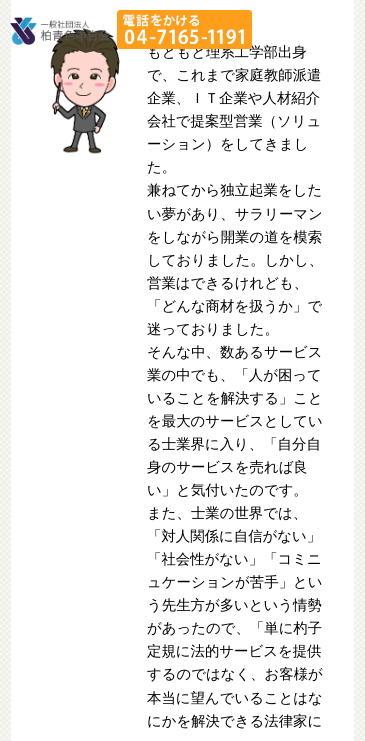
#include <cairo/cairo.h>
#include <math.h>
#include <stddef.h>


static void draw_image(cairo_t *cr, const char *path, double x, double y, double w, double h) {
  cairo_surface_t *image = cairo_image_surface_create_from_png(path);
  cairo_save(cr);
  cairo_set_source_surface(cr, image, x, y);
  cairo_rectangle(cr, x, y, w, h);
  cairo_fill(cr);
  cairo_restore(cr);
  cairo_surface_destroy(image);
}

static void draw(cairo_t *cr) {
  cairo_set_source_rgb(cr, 1, 1, 1);
  cairo_paint(cr);
  draw_image(cr, "images/3.png", 0, 0, 365, 741);
  cairo_set_source_rgb(cr, 1, 1, 1);
  cairo_rectangle(cr, 11, 0, 343, 741);
  cairo_fill(cr);
  draw_image(cr, "images/4.png", 50, 28, 70, 126);
  draw_image(cr, "images/1.png", 10, 17, 100, 28);
  cairo_select_font_face(cr, "WenQuanYi Zen Hei Medium", CAIRO_FONT_SLANT_NORMAL, CAIRO_FONT_WEIGHT_NORMAL);
  cairo_set_font_size(cr, 14.4);
  cairo_set_source_rgb(cr, 0, 0, 0);
  cairo_move_to(cr, 147, 57);
  cairo_show_text(cr, "もともと理系工学部出身");
  draw_image(cr, "images/2.png", 117, 10, 135, 39);
  cairo_move_to(cr, 147, 80);
  cairo_show_text(cr, "で、これまで家庭教師派遣");
  cairo_move_to(cr, 147, 103);
  cairo_show_text(cr, "企業、ＩＴ企業や人材紹介");
  cairo_move_to(cr, 147, 126);
  cairo_show_text(cr, "会社で提案型営業（ソリュ");
  cairo_move_to(cr, 147, 149);
  cairo_show_text(cr, "ーション）をしてきまし");
  cairo_move_to(cr, 147, 172);
  cairo_show_text(cr, "た。");
  cairo_move_to(cr, 147, 195);
  cairo_show_text(cr, "兼ねてから独立起業をした");
  cairo_move_to(cr, 147, 219);
  cairo_show_text(cr, "い夢があり、サラリーマン");
  cairo_move_to(cr, 147, 242);
  cairo_show_text(cr, "をしながら開業の道を模索");
  cairo_move_to(cr, 147, 265);
  cairo_show_text(cr, "しておりました。しかし、");
  cairo_move_to(cr, 147, 288);
  cairo_show_text(cr, "営業はできるけれども、");
  cairo_move_to(cr, 147, 311);
  cairo_show_text(cr, "「どんな商材を扱うか」で");
  cairo_move_to(cr, 147, 334);
  cairo_show_text(cr, "迷っておりました。");
  cairo_move_to(cr, 147, 357);
  cairo_show_text(cr, "そんな中、数あるサービス");
  cairo_move_to(cr, 147, 380);
  cairo_show_text(cr, "業の中でも、「人が困って");
  cairo_move_to(cr, 147, 403);
  cairo_show_text(cr, "いることを解決する」こと");
  cairo_move_to(cr, 147, 426);
  cairo_show_text(cr, "を最大のサービスとしてい");
  cairo_move_to(cr, 147, 449);
  cairo_show_text(cr, "る士業界に入り、「自分自");
  cairo_move_to(cr, 147, 472);
  cairo_show_text(cr, "身のサービスを売れば良");
  cairo_move_to(cr, 147, 495);
  cairo_show_text(cr, "い」と気付いたのです。");
  cairo_move_to(cr, 147, 518);
  cairo_show_text(cr, "また、士業の世界では、");
  cairo_move_to(cr, 147, 541);
  cairo_show_text(cr, "「対人関係に自信がない」");
  cairo_move_to(cr, 147, 564);
  cairo_show_text(cr, "「社会性がない」「コミニ");
  cairo_move_to(cr, 147, 587);
  cairo_show_text(cr, "ュケーションが苦手」とい");
  cairo_move_to(cr, 147, 610);
  cairo_show_text(cr, "う先生方が多いという情勢");
  cairo_move_to(cr, 147, 633);
  cairo_show_text(cr, "があったので、「単に杓子");
  cairo_move_to(cr, 147, 656);
  cairo_show_text(cr, "定規に法的サービスを提供");
  cairo_move_to(cr, 147, 679);
  cairo_show_text(cr, "するのではなく、お客様が");
  cairo_move_to(cr, 147, 703);
  cairo_show_text(cr, "本当に望んでいることはな");
  cairo_move_to(cr, 147, 726);
  cairo_show_text(cr, "にかを解決できる法律家に");
}

int main(void) {
  cairo_surface_t *surface = cairo_image_surface_create(CAIRO_FORMAT_RGB24, 365, 741);
  cairo_t *cr = cairo_create(surface);
  cairo_font_options_t *options = cairo_font_options_create();
  cairo_font_options_set_hint_metrics(options, CAIRO_HINT_METRICS_OFF);
  cairo_font_options_set_hint_style(options, CAIRO_HINT_STYLE_NONE);
  cairo_set_font_options(cr, options);
  cairo_set_miter_limit(cr, 4);
  draw(cr);
  cairo_surface_write_to_png(surface, "out.png");
  cairo_font_options_destroy(options);
  cairo_destroy(cr);
  cairo_surface_destroy(surface);
  return 0;
}
